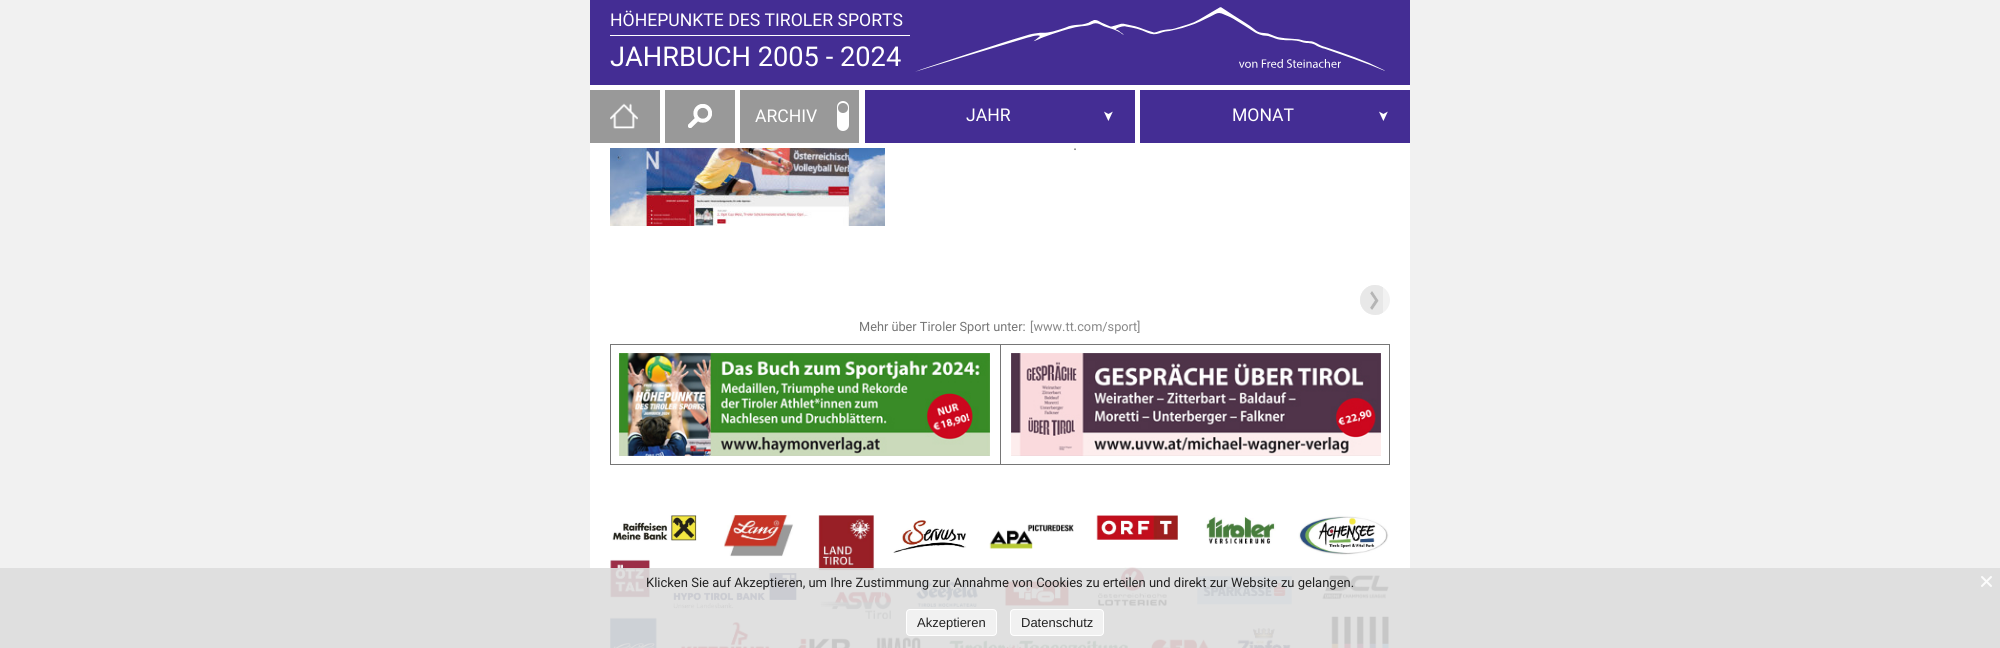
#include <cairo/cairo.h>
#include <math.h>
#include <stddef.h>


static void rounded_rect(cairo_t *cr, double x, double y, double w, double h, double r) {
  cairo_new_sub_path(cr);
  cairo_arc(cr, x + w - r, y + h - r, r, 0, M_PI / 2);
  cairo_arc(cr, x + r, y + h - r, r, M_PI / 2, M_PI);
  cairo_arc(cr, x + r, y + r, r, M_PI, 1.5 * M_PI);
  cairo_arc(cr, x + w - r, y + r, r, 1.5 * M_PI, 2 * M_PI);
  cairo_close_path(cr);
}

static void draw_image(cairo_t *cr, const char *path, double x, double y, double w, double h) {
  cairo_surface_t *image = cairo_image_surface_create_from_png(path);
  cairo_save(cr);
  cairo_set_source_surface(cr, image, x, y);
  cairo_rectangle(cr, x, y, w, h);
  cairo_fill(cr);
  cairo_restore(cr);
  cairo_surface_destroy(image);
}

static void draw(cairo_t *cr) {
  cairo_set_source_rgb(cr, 241 / 255.0, 241 / 255.0, 241 / 255.0);
  cairo_paint(cr);
  cairo_set_source_rgb(cr, 1, 1, 1);
  cairo_rectangle(cr, 590, 85, 820, 563);
  cairo_fill(cr);
  cairo_set_source_rgb(cr, 68 / 255.0, 45 / 255.0, 148 / 255.0);
  cairo_rectangle(cr, 590, 0, 820, 85);
  cairo_fill(cr);
  cairo_set_source_rgb(cr, 1, 1, 1);
  cairo_rectangle(cr, 610, 35, 300, 1);
  cairo_fill(cr);
  draw_image(cr, "images/1.png", 915, 7, 470, 65);
  cairo_set_source_rgb(cr, 153 / 255.0, 153 / 255.0, 153 / 255.0);
  cairo_rectangle(cr, 590, 90, 70, 53);
  cairo_fill(cr);
  draw_image(cr, "images/2.png", 610, 103, 28, 26);
  cairo_rectangle(cr, 665, 90, 70, 53);
  cairo_fill(cr);
  draw_image(cr, "images/3.png", 688, 104, 24, 24);
  cairo_rectangle(cr, 740, 90, 119, 53);
  cairo_fill(cr);
  cairo_set_source_rgb(cr, 1, 1, 1);
  rounded_rect(cr, 837, 101, 12, 30, 6);
  cairo_fill(cr);
  cairo_set_source_rgb(cr, 153 / 255.0, 153 / 255.0, 153 / 255.0);
  cairo_arc(cr, 843, 108, 5, 0, 2 * M_PI);
  cairo_fill(cr);
  cairo_set_source_rgb(cr, 68 / 255.0, 45 / 255.0, 148 / 255.0);
  cairo_rectangle(cr, 865, 90, 270, 53);
  cairo_fill(cr);
  cairo_rectangle(cr, 1140, 90, 270, 53);
  cairo_fill(cr);
  draw_image(cr, "images/4.png", 610, 148, 275, 78);
  cairo_set_source_rgb(cr, 242 / 255.0, 242 / 255.0, 242 / 255.0);
  cairo_arc(cr, 1375, 300, 15, 0, 2 * M_PI);
  cairo_fill(cr);
  cairo_save(cr);
  rounded_rect(cr, 1360, 285, 30, 30, 15);
  cairo_clip(cr);
  cairo_new_path(cr);
  cairo_move_to(cr, 1375, 285);
  cairo_line_to(cr, 1383, 285);
  cairo_line_to(cr, 1383, 315);
  cairo_line_to(cr, 1375, 315);
  cairo_curve_to(cr, 1366.5, 315, 1360, 308.5, 1360, 300);
  cairo_curve_to(cr, 1360, 291.5, 1366.5, 285, 1375, 285);
  cairo_close_path(cr);
  cairo_fill(cr);
  cairo_restore(cr);
  draw_image(cr, "images/5.png", 1360, 285, 23, 30);
  cairo_set_source_rgb(cr, 118 / 255.0, 118 / 255.0, 118 / 255.0);
  cairo_rectangle(cr, 1000, 344, 390, 1);
  cairo_fill(cr);
  cairo_rectangle(cr, 1389, 344, 1, 121);
  cairo_fill(cr);
  cairo_rectangle(cr, 1000, 464, 390, 1);
  cairo_fill(cr);
  cairo_rectangle(cr, 1000, 344, 1, 121);
  cairo_fill(cr);
  cairo_rectangle(cr, 610, 344, 391, 1);
  cairo_fill(cr);
  cairo_rectangle(cr, 610, 464, 391, 1);
  cairo_fill(cr);
  cairo_rectangle(cr, 610, 344, 1, 121);
  cairo_fill(cr);
  draw_image(cr, "images/6.png", 619, 353, 371, 103);
  draw_image(cr, "images/7.png", 1011, 353, 370, 103);
  draw_image(cr, "images/8.png", 610, 515, 779, 133);
  cairo_set_source_rgba(cr, 221 / 255.0, 221 / 255.0, 221 / 255.0, 0.9);
  cairo_rectangle(cr, 0, 568, 2000, 80);
  cairo_fill(cr);
  draw_image(cr, "images/9.png", 1981, 576, 11, 11);
  cairo_set_source_rgb(cr, 241 / 255.0, 241 / 255.0, 241 / 255.0);
  rounded_rect(cr, 906.5, 609.5, 90, 26, 3.5);
  cairo_fill_preserve(cr);
  cairo_set_source_rgb(cr, 1, 1, 1);
  cairo_set_line_width(cr, 1);
  cairo_stroke(cr);
  cairo_set_source_rgb(cr, 241 / 255.0, 241 / 255.0, 241 / 255.0);
  rounded_rect(cr, 1010.5, 609.5, 93, 26, 3.5);
  cairo_fill_preserve(cr);
  cairo_set_source_rgb(cr, 1, 1, 1);
  cairo_stroke(cr);
  cairo_select_font_face(cr, "Roboto", CAIRO_FONT_SLANT_NORMAL, CAIRO_FONT_WEIGHT_NORMAL);
  cairo_set_font_size(cr, 17.6);
  cairo_move_to(cr, 610, 26);
  cairo_show_text(cr, "HÖHEPUNKTE DES TIROLER SPORTS");
  cairo_set_font_size(cr, 27.25);
  cairo_move_to(cr, 610, 66);
  cairo_show_text(cr, "JAHRBUCH 2005 - 2024");
  cairo_set_font_size(cr, 17.6);
  cairo_move_to(cr, 755, 122);
  cairo_show_text(cr, "ARCHIV");
  cairo_move_to(cr, 966, 121);
  cairo_show_text(cr, "JAHR");
  cairo_select_font_face(cr, "DejaVu Sans", CAIRO_FONT_SLANT_NORMAL, CAIRO_FONT_WEIGHT_NORMAL);
  cairo_set_font_size(cr, 14);
  cairo_save(cr);
  cairo_translate(cr, 1104, 110);
  cairo_rotate(cr, 90 * M_PI / 180);
  cairo_move_to(cr, 0, 0);
  cairo_show_text(cr, "➤");
  cairo_restore(cr);
  cairo_select_font_face(cr, "Roboto", CAIRO_FONT_SLANT_NORMAL, CAIRO_FONT_WEIGHT_NORMAL);
  cairo_set_font_size(cr, 17.6);
  cairo_move_to(cr, 1232, 121);
  cairo_show_text(cr, "MONAT");
  cairo_select_font_face(cr, "DejaVu Sans", CAIRO_FONT_SLANT_NORMAL, CAIRO_FONT_WEIGHT_NORMAL);
  cairo_set_font_size(cr, 14);
  cairo_save(cr);
  cairo_translate(cr, 1379, 110);
  cairo_rotate(cr, 90 * M_PI / 180);
  cairo_move_to(cr, 0, 0);
  cairo_show_text(cr, "➤");
  cairo_restore(cr);
  cairo_select_font_face(cr, "Roboto", CAIRO_FONT_SLANT_NORMAL, CAIRO_FONT_WEIGHT_NORMAL);
  cairo_set_font_size(cr, 16);
  cairo_set_source_rgb(cr, 118 / 255.0, 118 / 255.0, 118 / 255.0);
  cairo_move_to(cr, 1073, 150);
  cairo_show_text(cr, ".");
  cairo_set_font_size(cr, 12.75);
  cairo_move_to(cr, 859, 331);
  cairo_show_text(cr, "Mehr über Tiroler Sport unter:");
  cairo_set_source_rgb(cr, 136 / 255.0, 136 / 255.0, 136 / 255.0);
  cairo_move_to(cr, 1030, 331);
  cairo_show_text(cr, "[www.tt.com/sport]");
  cairo_set_font_size(cr, 13);
  cairo_set_source_rgb(cr, 35 / 255.0, 35 / 255.0, 35 / 255.0);
  cairo_move_to(cr, 646, 587);
  cairo_show_text(cr, "Klicken Sie auf Akzeptieren, um Ihre Zustimmung zur Annahme von Cookies zu erteilen und direkt zur Website zu gelangen.");
  cairo_select_font_face(cr, "Liberation Sans", CAIRO_FONT_SLANT_NORMAL, CAIRO_FONT_WEIGHT_NORMAL);
  cairo_move_to(cr, 917, 627);
  cairo_show_text(cr, "Akzeptieren");
  cairo_move_to(cr, 1021, 627);
  cairo_show_text(cr, "Datenschutz");
}

int main(void) {
  cairo_surface_t *surface = cairo_image_surface_create(CAIRO_FORMAT_RGB24, 2000, 648);
  cairo_t *cr = cairo_create(surface);
  cairo_font_options_t *options = cairo_font_options_create();
  cairo_font_options_set_hint_metrics(options, CAIRO_HINT_METRICS_OFF);
  cairo_font_options_set_hint_style(options, CAIRO_HINT_STYLE_NONE);
  cairo_set_font_options(cr, options);
  cairo_set_miter_limit(cr, 4);
  draw(cr);
  cairo_surface_write_to_png(surface, "out.png");
  cairo_font_options_destroy(options);
  cairo_destroy(cr);
  cairo_surface_destroy(surface);
  return 0;
}
